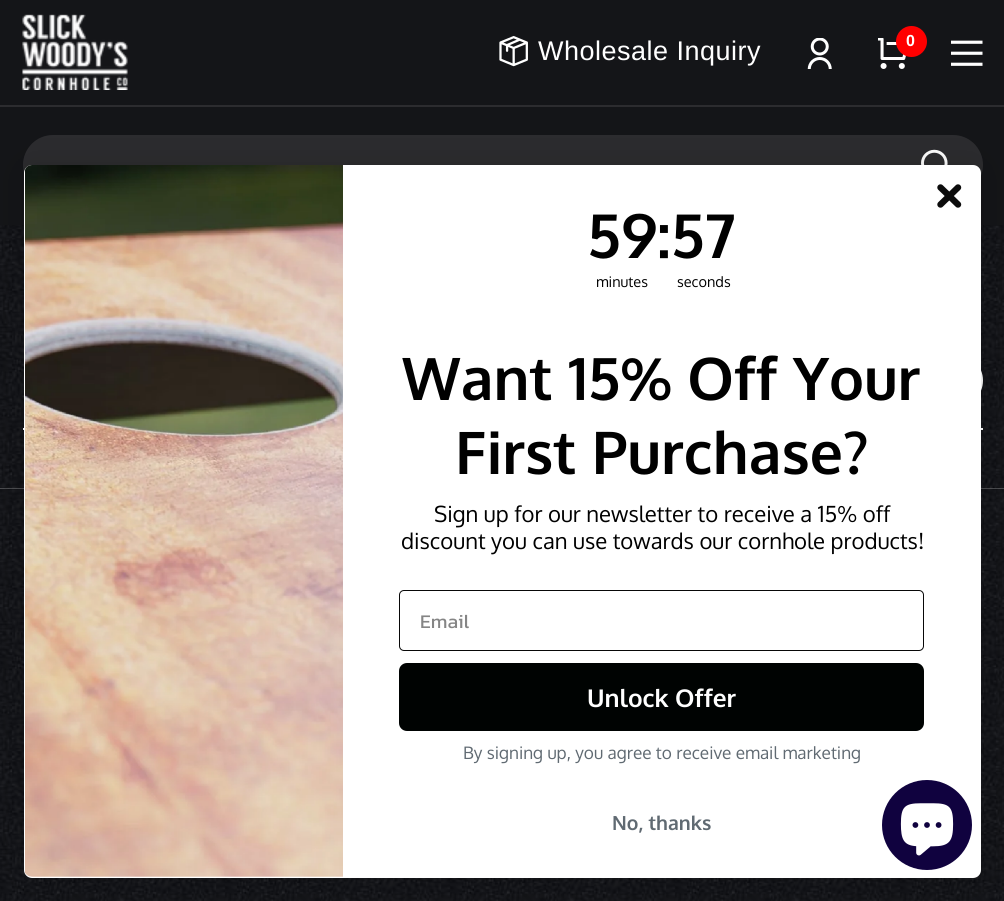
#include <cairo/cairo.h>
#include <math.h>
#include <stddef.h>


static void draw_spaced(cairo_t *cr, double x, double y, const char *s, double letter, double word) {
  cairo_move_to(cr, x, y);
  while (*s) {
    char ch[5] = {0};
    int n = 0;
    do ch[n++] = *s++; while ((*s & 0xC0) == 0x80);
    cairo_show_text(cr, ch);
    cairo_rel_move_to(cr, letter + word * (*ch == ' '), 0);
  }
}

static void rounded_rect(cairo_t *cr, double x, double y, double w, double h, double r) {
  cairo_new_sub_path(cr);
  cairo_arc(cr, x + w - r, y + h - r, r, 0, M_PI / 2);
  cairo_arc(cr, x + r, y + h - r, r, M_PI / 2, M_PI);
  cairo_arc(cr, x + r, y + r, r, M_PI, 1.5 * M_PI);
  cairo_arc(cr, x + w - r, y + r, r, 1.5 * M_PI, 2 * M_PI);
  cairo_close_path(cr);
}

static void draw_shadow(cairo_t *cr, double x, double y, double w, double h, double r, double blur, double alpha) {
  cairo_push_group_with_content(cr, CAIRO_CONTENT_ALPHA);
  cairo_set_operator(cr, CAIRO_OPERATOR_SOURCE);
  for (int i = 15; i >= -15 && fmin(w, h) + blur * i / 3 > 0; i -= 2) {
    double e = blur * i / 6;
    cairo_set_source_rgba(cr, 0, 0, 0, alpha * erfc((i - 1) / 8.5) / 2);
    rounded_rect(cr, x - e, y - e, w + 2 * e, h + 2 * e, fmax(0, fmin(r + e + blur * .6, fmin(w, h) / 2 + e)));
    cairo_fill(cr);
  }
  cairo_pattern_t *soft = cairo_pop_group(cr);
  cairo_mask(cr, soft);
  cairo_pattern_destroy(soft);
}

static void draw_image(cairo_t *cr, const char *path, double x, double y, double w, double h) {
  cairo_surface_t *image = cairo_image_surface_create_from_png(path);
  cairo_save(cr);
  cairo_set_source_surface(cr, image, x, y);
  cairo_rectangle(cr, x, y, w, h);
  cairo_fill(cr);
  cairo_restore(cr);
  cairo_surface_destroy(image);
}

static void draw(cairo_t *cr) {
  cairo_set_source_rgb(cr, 1, 1, 1);
  cairo_paint(cr);
  draw_image(cr, "images/1.png", 0, 488, 1004, 1);
  draw_image(cr, "images/8.png", 0, 225, 1004, 264);
  cairo_set_source_rgb(cr, 0, 0, 0);
  draw_shadow(cr, 0, 0, 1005, 225, 0, 1, 0.2);
  cairo_set_source_rgb(cr, 20 / 255.0, 21 / 255.0, 24 / 255.0);
  cairo_rectangle(cr, 0, 0, 1004, 225);
  cairo_fill(cr);
  draw_image(cr, "images/2.png", 22, 14, 106, 76);
  draw_image(cr, "images/3.png", 499, 36, 29, 31);
  draw_image(cr, "images/4.png", 807, 38, 25, 31);
  draw_image(cr, "images/5.png", 878, 38, 28, 31);
  cairo_set_source_rgb(cr, 1, 0, 0);
  cairo_arc(cr, 911.5, 41.5, 15.5, 0, 2 * M_PI);
  cairo_fill(cr);
  draw_image(cr, "images/6.png", 951, 40, 32, 26);
  cairo_set_source_rgb(cr, 44 / 255.0, 44 / 255.0, 47 / 255.0);
  cairo_rectangle(cr, 0, 105, 1004, 2);
  cairo_fill(cr);
  rounded_rect(cr, 23, 135, 960, 60, 30);
  cairo_fill(cr);
  draw_image(cr, "images/7.png", 921, 149, 27, 16);
  cairo_set_source_rgb(cr, 1, 1, 1);
  cairo_rectangle(cr, 23, 428, 960, 2);
  cairo_fill(cr);
  cairo_arc(cr, 956.5, 380.5, 25.5, 0, 2 * M_PI);
  cairo_stroke(cr);
  draw_image(cr, "images/9.png", 0, 488, 1004, 413);
  cairo_set_source_rgba(cr, 0, 0, 0, 0.12);
  cairo_rectangle(cr, 23, 660, 960, 2);
  cairo_fill(cr);
  cairo_rectangle(cr, 23, 791, 960, 2);
  cairo_fill(cr);
  cairo_set_source_rgb(cr, 0, 0, 0);
  draw_shadow(cr, 24, 165, 957, 713, 8, 18.5, 0.15);
  cairo_set_source_rgb(cr, 1, 1, 1);
  rounded_rect(cr, 24, 165, 957, 713, 8);
  cairo_fill(cr);
  cairo_new_path(cr);
  cairo_move_to(cr, 940.5, 187.5);
  cairo_line_to(cr, 958, 204.5);
  cairo_move_to(cr, 940.5, 204.5);
  cairo_line_to(cr, 958, 187.5);
  cairo_close_path(cr);
  cairo_set_source_rgb(cr, 12 / 255.0, 12 / 255.0, 12 / 255.0);
  cairo_set_line_width(cr, 6.4);
  cairo_set_line_cap(cr, CAIRO_LINE_CAP_ROUND);
  cairo_set_line_join(cr, CAIRO_LINE_JOIN_ROUND);
  cairo_stroke(cr);
  draw_image(cr, "images/10.png", 25, 165, 318, 712);
  rounded_rect(cr, 399.5, 590.5, 524, 60, 4.5);
  cairo_set_source_rgb(cr, 8 / 255.0, 8 / 255.0, 8 / 255.0);
  cairo_set_line_width(cr, 1);
  cairo_set_line_cap(cr, CAIRO_LINE_CAP_BUTT);
  cairo_set_line_join(cr, CAIRO_LINE_JOIN_MITER);
  cairo_stroke(cr);
  cairo_set_source_rgb(cr, 0, 3 / 255.0, 2 / 255.0);
  rounded_rect(cr, 399, 663, 525, 68, 8);
  cairo_fill(cr);
  cairo_set_source_rgb(cr, 16 / 255.0, 2 / 255.0, 63 / 255.0);
  cairo_arc(cr, 927, 825, 45, 0, 2 * M_PI);
  cairo_fill(cr);
  draw_image(cr, "images/11.png", 900, 803, 54, 53);
  cairo_select_font_face(cr, "Liberation Sans", CAIRO_FONT_SLANT_NORMAL, CAIRO_FONT_WEIGHT_NORMAL);
  cairo_set_font_size(cr, 27);
  cairo_set_source_rgb(cr, 1, 1, 1);
  draw_spaced(cr, 538, 60, "Wholesale Inquiry", 0.5, 0);
  cairo_select_font_face(cr, "Liberation Sans", CAIRO_FONT_SLANT_NORMAL, CAIRO_FONT_WEIGHT_BOLD);
  cairo_set_font_size(cr, 16);
  draw_spaced(cr, 906, 46, "0", 1, 0);
  cairo_select_font_face(cr, "Oxygen", CAIRO_FONT_SLANT_NORMAL, CAIRO_FONT_WEIGHT_BOLD);
  cairo_set_font_size(cr, 61);
  cairo_set_source_rgb(cr, 0, 0, 0);
  cairo_move_to(cr, 587, 258);
  cairo_show_text(cr, "59:57");
  cairo_select_font_face(cr, "Oxygen", CAIRO_FONT_SLANT_NORMAL, CAIRO_FONT_WEIGHT_NORMAL);
  cairo_set_font_size(cr, 14.5);
  cairo_move_to(cr, 596, 287);
  cairo_show_text(cr, "minutes");
  cairo_move_to(cr, 677, 287);
  cairo_show_text(cr, "seconds");
  cairo_select_font_face(cr, "Oxygen", CAIRO_FONT_SLANT_NORMAL, CAIRO_FONT_WEIGHT_BOLD);
  cairo_set_font_size(cr, 58.75);
  cairo_move_to(cr, 402, 400);
  cairo_show_text(cr, "Want 15% Off Your");
  cairo_move_to(cr, 455, 474);
  cairo_show_text(cr, "First Purchase?");
  cairo_select_font_face(cr, "Oxygen", CAIRO_FONT_SLANT_NORMAL, CAIRO_FONT_WEIGHT_NORMAL);
  cairo_set_font_size(cr, 22.1);
  cairo_move_to(cr, 434, 522);
  cairo_show_text(cr, "Sign up for our newsletter to receive a 15% off");
  cairo_move_to(cr, 401, 549);
  cairo_show_text(cr, "discount you can use towards our cornhole products!");
  cairo_select_font_face(cr, "Kanit", CAIRO_FONT_SLANT_NORMAL, CAIRO_FONT_WEIGHT_NORMAL);
  cairo_set_font_size(cr, 19.5);
  cairo_set_source_rgb(cr, 133 / 255.0, 133 / 255.0, 133 / 255.0);
  cairo_move_to(cr, 420, 628);
  cairo_show_text(cr, "Email");
  cairo_select_font_face(cr, "Oxygen", CAIRO_FONT_SLANT_NORMAL, CAIRO_FONT_WEIGHT_BOLD);
  cairo_set_font_size(cr, 24.5);
  cairo_set_source_rgb(cr, 1, 1, 1);
  cairo_move_to(cr, 587, 707);
  cairo_show_text(cr, "Unlock Offer");
  cairo_select_font_face(cr, "Oxygen", CAIRO_FONT_SLANT_NORMAL, CAIRO_FONT_WEIGHT_NORMAL);
  cairo_set_font_size(cr, 17.2);
  cairo_set_source_rgb(cr, 96 / 255.0, 106 / 255.0, 114 / 255.0);
  cairo_move_to(cr, 463, 759);
  cairo_show_text(cr, "By signing up, you agree to receive email marketing");
  cairo_select_font_face(cr, "Oxygen", CAIRO_FONT_SLANT_NORMAL, CAIRO_FONT_WEIGHT_BOLD);
  cairo_set_font_size(cr, 19.5);
  cairo_move_to(cr, 612, 830);
  cairo_show_text(cr, "No, thanks");
}

int main(void) {
  cairo_surface_t *surface = cairo_image_surface_create(CAIRO_FORMAT_RGB24, 1004, 901);
  cairo_t *cr = cairo_create(surface);
  cairo_font_options_t *options = cairo_font_options_create();
  cairo_font_options_set_hint_metrics(options, CAIRO_HINT_METRICS_OFF);
  cairo_font_options_set_hint_style(options, CAIRO_HINT_STYLE_NONE);
  cairo_set_font_options(cr, options);
  cairo_set_miter_limit(cr, 4);
  draw(cr);
  cairo_surface_write_to_png(surface, "out.png");
  cairo_font_options_destroy(options);
  cairo_destroy(cr);
  cairo_surface_destroy(surface);
  return 0;
}
